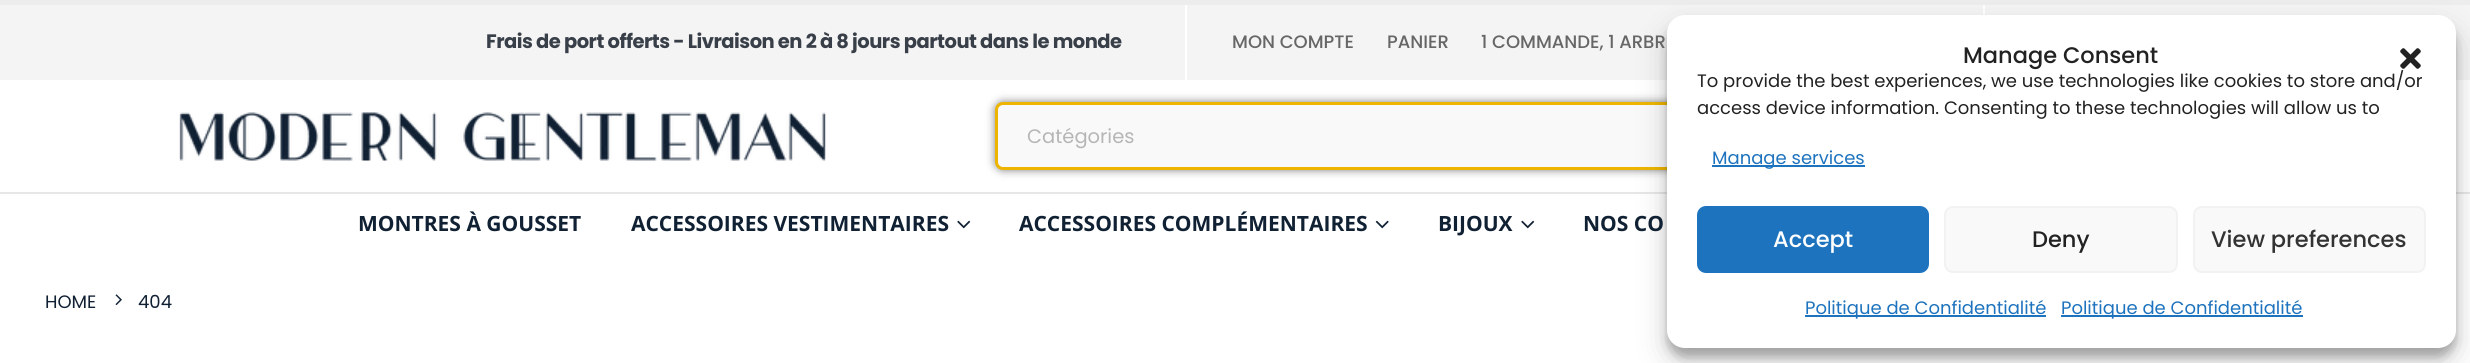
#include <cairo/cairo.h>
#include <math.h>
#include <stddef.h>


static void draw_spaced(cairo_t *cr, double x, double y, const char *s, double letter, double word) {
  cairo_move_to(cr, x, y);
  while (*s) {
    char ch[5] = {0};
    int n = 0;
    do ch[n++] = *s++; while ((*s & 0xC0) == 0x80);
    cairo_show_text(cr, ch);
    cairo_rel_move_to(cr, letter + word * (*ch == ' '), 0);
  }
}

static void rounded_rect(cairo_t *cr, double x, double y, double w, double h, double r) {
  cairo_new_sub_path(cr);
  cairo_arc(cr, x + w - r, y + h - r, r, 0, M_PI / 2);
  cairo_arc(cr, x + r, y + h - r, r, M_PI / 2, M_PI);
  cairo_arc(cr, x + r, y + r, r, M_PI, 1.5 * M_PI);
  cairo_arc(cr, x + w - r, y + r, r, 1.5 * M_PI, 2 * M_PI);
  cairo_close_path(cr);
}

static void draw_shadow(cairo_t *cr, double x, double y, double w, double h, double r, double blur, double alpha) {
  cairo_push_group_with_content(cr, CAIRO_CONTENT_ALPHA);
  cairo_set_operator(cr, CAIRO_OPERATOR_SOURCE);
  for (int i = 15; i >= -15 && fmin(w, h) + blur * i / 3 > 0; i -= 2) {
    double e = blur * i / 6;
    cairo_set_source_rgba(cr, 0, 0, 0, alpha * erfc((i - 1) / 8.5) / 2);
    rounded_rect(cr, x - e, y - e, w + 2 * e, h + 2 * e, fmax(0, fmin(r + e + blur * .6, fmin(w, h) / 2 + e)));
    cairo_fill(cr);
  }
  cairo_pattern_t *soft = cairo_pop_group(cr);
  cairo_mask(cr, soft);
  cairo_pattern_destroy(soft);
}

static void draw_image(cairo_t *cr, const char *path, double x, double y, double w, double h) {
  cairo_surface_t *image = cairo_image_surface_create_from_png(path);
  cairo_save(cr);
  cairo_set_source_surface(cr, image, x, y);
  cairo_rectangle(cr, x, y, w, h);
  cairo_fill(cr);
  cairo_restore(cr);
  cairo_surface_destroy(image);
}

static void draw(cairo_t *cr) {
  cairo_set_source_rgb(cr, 1, 1, 1);
  cairo_paint(cr);
  cairo_set_source_rgb(cr, 237 / 255.0, 237 / 255.0, 237 / 255.0);
  cairo_rectangle(cr, 0, 0, 2470, 5);
  cairo_fill(cr);
  cairo_set_source_rgb(cr, 244 / 255.0, 244 / 255.0, 244 / 255.0);
  cairo_rectangle(cr, 0, 5, 2470, 75);
  cairo_fill(cr);
  cairo_set_source_rgb(cr, 1, 1, 1);
  cairo_rectangle(cr, 1185, 5, 2, 75);
  cairo_fill(cr);
  cairo_rectangle(cr, 1983, 5, 2, 10);
  cairo_fill(cr);
  cairo_set_source_rgb(cr, 231 / 255.0, 231 / 255.0, 231 / 255.0);
  cairo_rectangle(cr, 0, 192, 2470, 2);
  cairo_fill(cr);
  draw_image(cr, "images/1.png", 179, 112, 647, 49);
  cairo_set_source_rgb(cr, 0, 0, 0);
  draw_shadow(cr, 995, 102, 1020, 68, 8, 4.5, 0.5);
  cairo_set_source_rgb(cr, 249 / 255.0, 249 / 255.0, 249 / 255.0);
  rounded_rect(cr, 996.5, 103.5, 1017, 65, 6.5);
  cairo_fill_preserve(cr);
  cairo_set_source_rgb(cr, 237 / 255.0, 181 / 255.0, 0);
  cairo_set_line_width(cr, 3);
  cairo_stroke(cr);
  draw_image(cr, "images/2.png", 957, 220, 14, 9);
  draw_image(cr, "images/3.png", 1375, 220, 14, 9);
  draw_image(cr, "images/2.png", 1521, 220, 14, 9);
  draw_image(cr, "images/4.png", 115, 294, 7, 12);
  cairo_set_source_rgb(cr, 0, 0, 0);
  draw_shadow(cr, 1667, 24, 789, 333, 18, 4.5, 0.23);
  draw_shadow(cr, 1667, 30, 789, 333, 18, 15, 0.19);
  cairo_set_source_rgb(cr, 1, 1, 1);
  rounded_rect(cr, 1667, 15, 789, 333, 18);
  cairo_fill(cr);
  draw_image(cr, "images/5.png", 2400, 48, 21, 21);
  cairo_set_source_rgb(cr, 30 / 255.0, 115 / 255.0, 190 / 255.0);
  cairo_rectangle(cr, 1712, 165, 153, 2);
  cairo_fill(cr);
  rounded_rect(cr, 1698, 207, 230, 65, 8);
  cairo_fill_preserve(cr);
  cairo_set_line_width(cr, 2);
  cairo_stroke(cr);
  cairo_set_source_rgb(cr, 249 / 255.0, 249 / 255.0, 249 / 255.0);
  rounded_rect(cr, 1945, 207, 232, 65, 8);
  cairo_fill_preserve(cr);
  cairo_set_source_rgb(cr, 242 / 255.0, 242 / 255.0, 242 / 255.0);
  cairo_stroke(cr);
  cairo_set_source_rgb(cr, 249 / 255.0, 249 / 255.0, 249 / 255.0);
  rounded_rect(cr, 2194, 207, 231, 65, 8);
  cairo_fill_preserve(cr);
  cairo_set_source_rgb(cr, 242 / 255.0, 242 / 255.0, 242 / 255.0);
  cairo_stroke(cr);
  cairo_set_source_rgb(cr, 30 / 255.0, 115 / 255.0, 190 / 255.0);
  cairo_rectangle(cr, 1805, 315, 241, 2);
  cairo_fill(cr);
  cairo_rectangle(cr, 2061, 315, 242, 2);
  cairo_fill(cr);
  cairo_select_font_face(cr, "Poppins", CAIRO_FONT_SLANT_NORMAL, CAIRO_FONT_WEIGHT_BOLD);
  cairo_set_font_size(cr, 19.5);
  cairo_set_source_rgb(cr, 56 / 255.0, 63 / 255.0, 72 / 255.0);
  draw_spaced(cr, 486, 48, "Frais de port offerts - Livraison en 2 à 8 jours partout dans le monde", -0.5, 0);
  cairo_select_font_face(cr, "Poppins Medium", CAIRO_FONT_SLANT_NORMAL, CAIRO_FONT_WEIGHT_NORMAL);
  cairo_set_font_size(cr, 18);
  cairo_set_source_rgb(cr, 102 / 255.0, 102 / 255.0, 102 / 255.0);
  cairo_move_to(cr, 1232, 48);
  cairo_show_text(cr, "MON COMPTE");
  cairo_move_to(cr, 1387, 48);
  cairo_show_text(cr, "PANIER");
  cairo_move_to(cr, 1481, 48);
  cairo_show_text(cr, "1 COMMANDE, 1 ARBR");
  cairo_select_font_face(cr, "Poppins", CAIRO_FONT_SLANT_NORMAL, CAIRO_FONT_WEIGHT_NORMAL);
  cairo_set_font_size(cr, 19.5);
  cairo_set_source_rgb(cr, 182 / 255.0, 182 / 255.0, 182 / 255.0);
  cairo_move_to(cr, 1027, 143);
  cairo_show_text(cr, "Catégories");
  cairo_select_font_face(cr, "Open Sans", CAIRO_FONT_SLANT_NORMAL, CAIRO_FONT_WEIGHT_BOLD);
  cairo_set_font_size(cr, 21);
  cairo_set_source_rgb(cr, 17 / 255.0, 33 / 255.0, 52 / 255.0);
  cairo_move_to(cr, 358, 231);
  cairo_show_text(cr, "MONTRES À GOUSSET");
  cairo_move_to(cr, 631, 231);
  cairo_show_text(cr, "ACCESSOIRES VESTIMENTAIRES");
  cairo_move_to(cr, 1019, 231);
  cairo_show_text(cr, "ACCESSOIRES COMPLÉMENTAIRES");
  cairo_move_to(cr, 1438, 231);
  cairo_show_text(cr, "BIJOUX");
  cairo_move_to(cr, 1583, 231);
  cairo_show_text(cr, "NOS CO");
  cairo_select_font_face(cr, "Poppins", CAIRO_FONT_SLANT_NORMAL, CAIRO_FONT_WEIGHT_NORMAL);
  cairo_set_font_size(cr, 18);
  cairo_move_to(cr, 45, 308);
  cairo_show_text(cr, "HOME");
  cairo_move_to(cr, 138, 308);
  cairo_show_text(cr, "404");
  cairo_select_font_face(cr, "Poppins Medium", CAIRO_FONT_SLANT_NORMAL, CAIRO_FONT_WEIGHT_NORMAL);
  cairo_set_font_size(cr, 22.5);
  cairo_set_source_rgb(cr, 34 / 255.0, 34 / 255.0, 34 / 255.0);
  cairo_move_to(cr, 1963, 63);
  cairo_show_text(cr, "Manage Consent");
  cairo_select_font_face(cr, "Poppins", CAIRO_FONT_SLANT_NORMAL, CAIRO_FONT_WEIGHT_NORMAL);
  cairo_set_font_size(cr, 18);
  cairo_move_to(cr, 1697, 87);
  cairo_show_text(cr, "To provide the best experiences, we use technologies like cookies to store and/or");
  cairo_move_to(cr, 1697, 114);
  cairo_show_text(cr, "access device information. Consenting to these technologies will allow us to");
  cairo_set_source_rgb(cr, 30 / 255.0, 115 / 255.0, 190 / 255.0);
  cairo_move_to(cr, 1712, 164);
  cairo_show_text(cr, "Manage services");
  cairo_select_font_face(cr, "Poppins Medium", CAIRO_FONT_SLANT_NORMAL, CAIRO_FONT_WEIGHT_NORMAL);
  cairo_set_font_size(cr, 22.5);
  cairo_set_source_rgb(cr, 1, 1, 1);
  cairo_move_to(cr, 1773, 247);
  cairo_show_text(cr, "Accept");
  cairo_set_source_rgb(cr, 34 / 255.0, 34 / 255.0, 34 / 255.0);
  cairo_move_to(cr, 2032, 247);
  cairo_show_text(cr, "Deny");
  cairo_set_source_rgb(cr, 51 / 255.0, 51 / 255.0, 51 / 255.0);
  cairo_move_to(cr, 2211, 247);
  cairo_show_text(cr, "View preferences");
  cairo_select_font_face(cr, "Poppins", CAIRO_FONT_SLANT_NORMAL, CAIRO_FONT_WEIGHT_NORMAL);
  cairo_set_font_size(cr, 18);
  cairo_set_source_rgb(cr, 30 / 255.0, 115 / 255.0, 190 / 255.0);
  cairo_move_to(cr, 1805, 314);
  cairo_show_text(cr, "Politique de Confidentialité");
  cairo_move_to(cr, 2061, 314);
  cairo_show_text(cr, "Politique de Confidentialité");
}

int main(void) {
  cairo_surface_t *surface = cairo_image_surface_create(CAIRO_FORMAT_RGB24, 2470, 363);
  cairo_t *cr = cairo_create(surface);
  cairo_font_options_t *options = cairo_font_options_create();
  cairo_font_options_set_hint_metrics(options, CAIRO_HINT_METRICS_OFF);
  cairo_font_options_set_hint_style(options, CAIRO_HINT_STYLE_NONE);
  cairo_set_font_options(cr, options);
  cairo_set_miter_limit(cr, 4);
  draw(cr);
  cairo_surface_write_to_png(surface, "out.png");
  cairo_font_options_destroy(options);
  cairo_destroy(cr);
  cairo_surface_destroy(surface);
  return 0;
}
